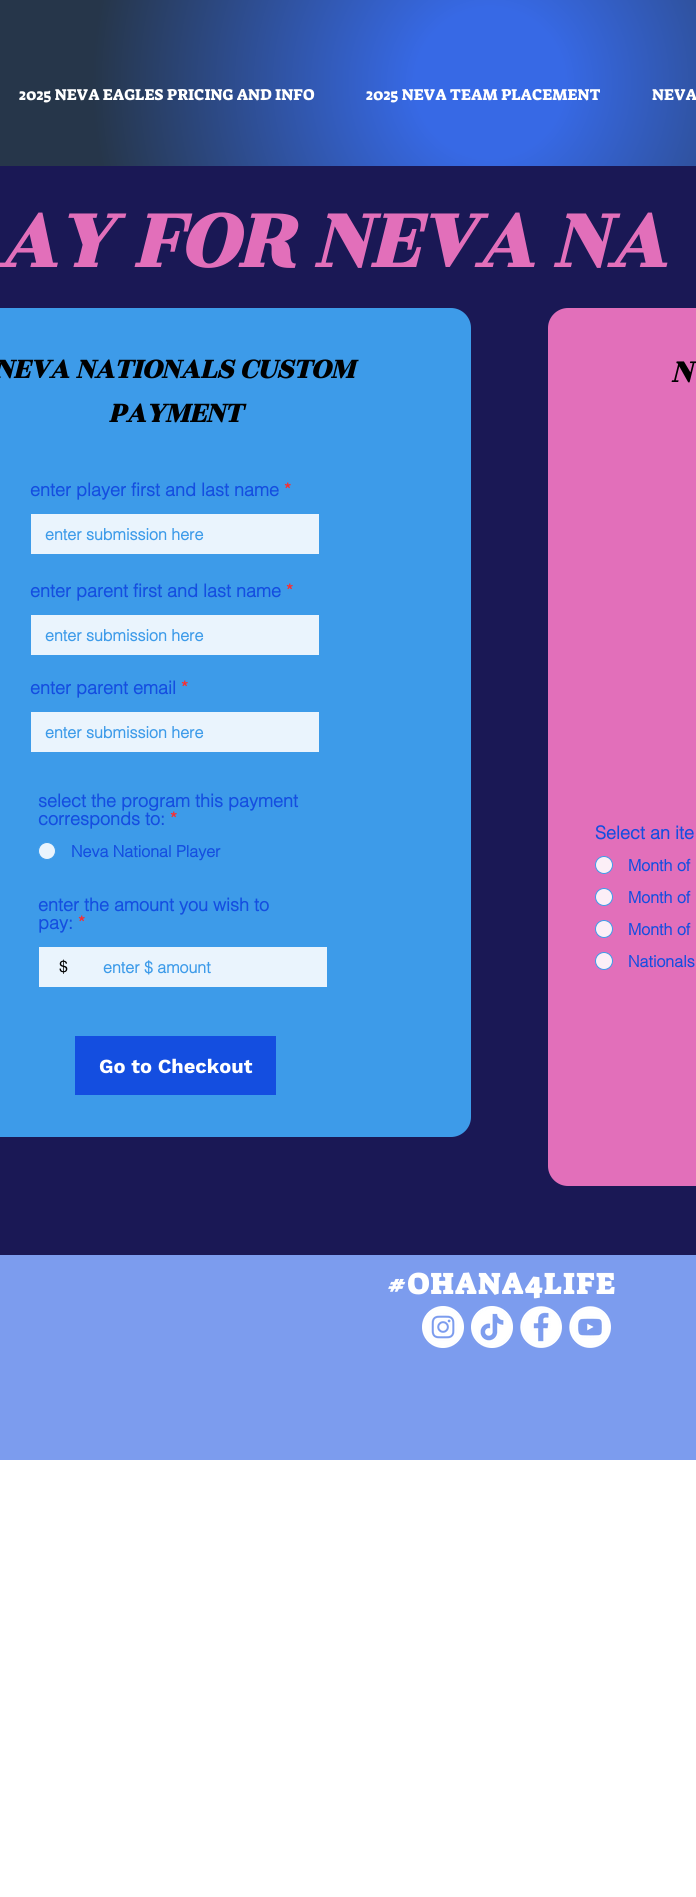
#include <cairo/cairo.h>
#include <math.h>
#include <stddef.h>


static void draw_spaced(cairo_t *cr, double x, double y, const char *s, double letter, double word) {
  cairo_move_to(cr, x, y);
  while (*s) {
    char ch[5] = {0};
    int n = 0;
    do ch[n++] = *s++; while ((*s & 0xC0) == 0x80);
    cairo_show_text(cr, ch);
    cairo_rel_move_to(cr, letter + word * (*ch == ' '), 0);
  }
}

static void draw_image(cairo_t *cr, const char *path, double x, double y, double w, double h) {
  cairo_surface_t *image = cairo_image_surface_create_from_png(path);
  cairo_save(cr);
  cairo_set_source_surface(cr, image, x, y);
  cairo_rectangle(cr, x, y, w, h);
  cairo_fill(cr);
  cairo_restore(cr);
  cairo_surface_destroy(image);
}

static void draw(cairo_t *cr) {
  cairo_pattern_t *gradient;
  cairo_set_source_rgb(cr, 1, 1, 1);
  cairo_paint(cr);
  gradient = cairo_pattern_create_radial(490, 83, 0, 490, 83, 497);
  cairo_pattern_add_color_stop_rgba(gradient, 0.15, 55 / 255.0, 105 / 255.0, 229 / 255.0, 1);
  cairo_pattern_add_color_stop_rgba(gradient, 0.8, 38 / 255.0, 54 / 255.0, 74 / 255.0, 1);
  cairo_set_source(cr, gradient);
  cairo_pattern_destroy(gradient);
  cairo_rectangle(cr, 0, 0, 696, 166);
  cairo_fill(cr);
  cairo_set_source_rgb(cr, 26 / 255.0, 24 / 255.0, 85 / 255.0);
  cairo_rectangle(cr, 0, 166, 696, 1089);
  cairo_fill(cr);
  cairo_set_source_rgb(cr, 61 / 255.0, 155 / 255.0, 233 / 255.0);
  cairo_new_path(cr);
  cairo_move_to(cr, 0, 308);
  cairo_line_to(cr, 451, 308);
  cairo_curve_to(cr, 462, 308, 471, 317, 471, 328);
  cairo_line_to(cr, 471, 1117);
  cairo_curve_to(cr, 471, 1128, 462, 1137, 451, 1137);
  cairo_line_to(cr, 0, 1137);
  cairo_close_path(cr);
  cairo_fill(cr);
  cairo_set_source_rgb(cr, 234 / 255.0, 244 / 255.0, 253 / 255.0);
  cairo_rectangle(cr, 31, 514, 288, 40);
  cairo_fill(cr);
  cairo_rectangle(cr, 31, 615, 288, 40);
  cairo_fill(cr);
  cairo_rectangle(cr, 31, 712, 288, 40);
  cairo_fill(cr);
  cairo_arc(cr, 47, 851, 8.5, 0, 2 * M_PI);
  cairo_fill_preserve(cr);
  cairo_set_source_rgb(cr, 61 / 255.0, 155 / 255.0, 233 / 255.0);
  cairo_set_line_width(cr, 1);
  cairo_stroke(cr);
  cairo_set_source_rgb(cr, 234 / 255.0, 244 / 255.0, 253 / 255.0);
  cairo_rectangle(cr, 39, 947, 288, 40);
  cairo_fill(cr);
  cairo_set_source_rgb(cr, 20 / 255.0, 78 / 255.0, 224 / 255.0);
  cairo_rectangle(cr, 75, 1036, 201, 59);
  cairo_fill(cr);
  cairo_set_source_rgb(cr, 226 / 255.0, 111 / 255.0, 186 / 255.0);
  cairo_new_path(cr);
  cairo_move_to(cr, 568, 308);
  cairo_line_to(cr, 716, 308);
  cairo_line_to(cr, 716, 1186);
  cairo_line_to(cr, 568, 1186);
  cairo_curve_to(cr, 557, 1186, 548, 1177, 548, 1166);
  cairo_line_to(cr, 548, 328);
  cairo_curve_to(cr, 548, 317, 557, 308, 568, 308);
  cairo_close_path(cr);
  cairo_fill(cr);
  cairo_set_source_rgb(cr, 252 / 255.0, 239 / 255.0, 247 / 255.0);
  cairo_arc(cr, 604, 865, 8.5, 0, 2 * M_PI);
  cairo_fill_preserve(cr);
  cairo_set_source_rgb(cr, 61 / 255.0, 155 / 255.0, 233 / 255.0);
  cairo_stroke(cr);
  cairo_set_source_rgb(cr, 252 / 255.0, 239 / 255.0, 247 / 255.0);
  cairo_arc(cr, 604, 897, 8.5, 0, 2 * M_PI);
  cairo_fill_preserve(cr);
  cairo_set_source_rgb(cr, 61 / 255.0, 155 / 255.0, 233 / 255.0);
  cairo_stroke(cr);
  cairo_set_source_rgb(cr, 252 / 255.0, 239 / 255.0, 247 / 255.0);
  cairo_arc(cr, 604, 929, 8.5, 0, 2 * M_PI);
  cairo_fill_preserve(cr);
  cairo_set_source_rgb(cr, 61 / 255.0, 155 / 255.0, 233 / 255.0);
  cairo_stroke(cr);
  cairo_set_source_rgb(cr, 252 / 255.0, 239 / 255.0, 247 / 255.0);
  cairo_arc(cr, 604, 961, 8.5, 0, 2 * M_PI);
  cairo_fill_preserve(cr);
  cairo_set_source_rgb(cr, 61 / 255.0, 155 / 255.0, 233 / 255.0);
  cairo_stroke(cr);
  cairo_set_source_rgb(cr, 124 / 255.0, 156 / 255.0, 238 / 255.0);
  cairo_rectangle(cr, 0, 1255, 696, 205);
  cairo_fill(cr);
  draw_image(cr, "images/1.png", 422, 1306, 42, 42);
  draw_image(cr, "images/2.png", 471, 1306, 42, 42);
  draw_image(cr, "images/3.png", 520, 1306, 42, 42);
  draw_image(cr, "images/4.png", 569, 1306, 42, 42);
  cairo_select_font_face(cr, "Suez One", CAIRO_FONT_SLANT_NORMAL, CAIRO_FONT_WEIGHT_NORMAL);
  cairo_set_font_size(cr, 16);
  cairo_set_source_rgb(cr, 1, 1, 1);
  cairo_move_to(cr, 19, 100);
  cairo_show_text(cr, "2025 NEVA EAGLES PRICING AND INFO");
  cairo_move_to(cr, 366, 100);
  cairo_show_text(cr, "2025 NEVA TEAM PLACEMENT");
  cairo_move_to(cr, 652, 100);
  cairo_show_text(cr, "NEVA");
  cairo_select_font_face(cr, "Rozha One", CAIRO_FONT_SLANT_ITALIC, CAIRO_FONT_WEIGHT_BOLD);
  cairo_set_font_size(cr, 91);
  cairo_set_source_rgb(cr, 226 / 255.0, 111 / 255.0, 186 / 255.0);
  cairo_move_to(cr, -3, 267);
  cairo_show_text(cr, "AY FOR NEVA NA");
  cairo_set_font_size(cr, 31);
  cairo_set_source_rgb(cr, 0, 0, 0);
  cairo_move_to(cr, -6, 378);
  cairo_show_text(cr, "NEVA NATIONALS CUSTOM");
  cairo_move_to(cr, 108, 422);
  cairo_show_text(cr, "PAYMENT");
  cairo_select_font_face(cr, "helvetica", CAIRO_FONT_SLANT_NORMAL, CAIRO_FONT_WEIGHT_BOLD);
  cairo_set_font_size(cr, 18);
  cairo_set_source_rgb(cr, 20 / 255.0, 78 / 255.0, 224 / 255.0);
  cairo_move_to(cr, 30, 496);
  cairo_show_text(cr, "enter player first and last name");
  cairo_set_source_rgb(cr, 1, 43 / 255.0, 43 / 255.0);
  cairo_move_to(cr, 284, 496);
  cairo_show_text(cr, "*");
  cairo_set_font_size(cr, 16);
  cairo_set_source_rgb(cr, 61 / 255.0, 155 / 255.0, 233 / 255.0);
  cairo_move_to(cr, 45, 540);
  cairo_show_text(cr, "enter submission here");
  cairo_set_font_size(cr, 18);
  cairo_set_source_rgb(cr, 20 / 255.0, 78 / 255.0, 224 / 255.0);
  cairo_move_to(cr, 30, 597);
  cairo_show_text(cr, "enter parent first and last name");
  cairo_set_source_rgb(cr, 1, 43 / 255.0, 43 / 255.0);
  cairo_move_to(cr, 286, 597);
  cairo_show_text(cr, "*");
  cairo_set_font_size(cr, 16);
  cairo_set_source_rgb(cr, 61 / 255.0, 155 / 255.0, 233 / 255.0);
  cairo_move_to(cr, 45, 641);
  cairo_show_text(cr, "enter submission here");
  cairo_set_font_size(cr, 18);
  cairo_set_source_rgb(cr, 20 / 255.0, 78 / 255.0, 224 / 255.0);
  cairo_move_to(cr, 30, 694);
  cairo_show_text(cr, "enter parent email");
  cairo_set_source_rgb(cr, 1, 43 / 255.0, 43 / 255.0);
  cairo_move_to(cr, 181, 694);
  cairo_show_text(cr, "*");
  cairo_set_font_size(cr, 16);
  cairo_set_source_rgb(cr, 61 / 255.0, 155 / 255.0, 233 / 255.0);
  cairo_move_to(cr, 45, 738);
  cairo_show_text(cr, "enter submission here");
  cairo_set_font_size(cr, 18);
  cairo_set_source_rgb(cr, 20 / 255.0, 78 / 255.0, 224 / 255.0);
  cairo_move_to(cr, 38, 807);
  cairo_show_text(cr, "select the program this payment");
  cairo_move_to(cr, 38, 825);
  cairo_show_text(cr, "corresponds to:");
  cairo_set_source_rgb(cr, 1, 43 / 255.0, 43 / 255.0);
  cairo_move_to(cr, 170, 825);
  cairo_show_text(cr, "*");
  cairo_set_font_size(cr, 16);
  cairo_set_source_rgb(cr, 20 / 255.0, 78 / 255.0, 224 / 255.0);
  cairo_move_to(cr, 71, 857);
  cairo_show_text(cr, "Neva National Player");
  cairo_set_font_size(cr, 18);
  cairo_move_to(cr, 38, 911);
  cairo_show_text(cr, "enter the amount you wish to");
  cairo_move_to(cr, 38, 929);
  cairo_show_text(cr, "pay:");
  cairo_set_source_rgb(cr, 1, 43 / 255.0, 43 / 255.0);
  cairo_move_to(cr, 78, 929);
  cairo_show_text(cr, "*");
  cairo_select_font_face(cr, "helvetica", CAIRO_FONT_SLANT_NORMAL, CAIRO_FONT_WEIGHT_NORMAL);
  cairo_set_font_size(cr, 16);
  cairo_set_source_rgb(cr, 0, 0, 0);
  cairo_move_to(cr, 59, 972);
  cairo_show_text(cr, "$");
  cairo_select_font_face(cr, "helvetica", CAIRO_FONT_SLANT_NORMAL, CAIRO_FONT_WEIGHT_BOLD);
  cairo_set_source_rgb(cr, 61 / 255.0, 155 / 255.0, 233 / 255.0);
  cairo_move_to(cr, 103, 973);
  cairo_show_text(cr, "enter $ amount");
  cairo_select_font_face(cr, "Work Sans", CAIRO_FONT_SLANT_NORMAL, CAIRO_FONT_WEIGHT_BOLD);
  cairo_set_font_size(cr, 20);
  cairo_set_source_rgb(cr, 1, 1, 1);
  cairo_move_to(cr, 99, 1073);
  cairo_show_text(cr, "Go to Checkout");
  cairo_select_font_face(cr, "Rozha One", CAIRO_FONT_SLANT_ITALIC, CAIRO_FONT_WEIGHT_BOLD);
  cairo_set_font_size(cr, 35);
  cairo_set_source_rgb(cr, 0, 0, 0);
  cairo_move_to(cr, 671, 382);
  cairo_show_text(cr, "N");
  cairo_select_font_face(cr, "helvetica", CAIRO_FONT_SLANT_NORMAL, CAIRO_FONT_WEIGHT_BOLD);
  cairo_set_font_size(cr, 18);
  cairo_set_source_rgb(cr, 20 / 255.0, 78 / 255.0, 224 / 255.0);
  cairo_move_to(cr, 595, 839);
  cairo_show_text(cr, "Select an ite");
  cairo_set_font_size(cr, 16);
  cairo_move_to(cr, 628, 871);
  cairo_show_text(cr, "Month of");
  cairo_move_to(cr, 628, 903);
  cairo_show_text(cr, "Month of");
  cairo_move_to(cr, 628, 935);
  cairo_show_text(cr, "Month of");
  cairo_move_to(cr, 628, 967);
  cairo_show_text(cr, "Nationals");
  cairo_select_font_face(cr, "Suez One", CAIRO_FONT_SLANT_NORMAL, CAIRO_FONT_WEIGHT_BOLD);
  cairo_set_font_size(cr, 30);
  cairo_set_source_rgb(cr, 1, 1, 1);
  draw_spaced(cr, 387, 1294, "#OHANA4LIFE", 1.5, 0);
}

int main(void) {
  cairo_surface_t *surface = cairo_image_surface_create(CAIRO_FORMAT_RGB24, 696, 1897);
  cairo_t *cr = cairo_create(surface);
  cairo_font_options_t *options = cairo_font_options_create();
  cairo_font_options_set_hint_metrics(options, CAIRO_HINT_METRICS_OFF);
  cairo_font_options_set_hint_style(options, CAIRO_HINT_STYLE_NONE);
  cairo_set_font_options(cr, options);
  cairo_set_miter_limit(cr, 4);
  draw(cr);
  cairo_surface_write_to_png(surface, "out.png");
  cairo_font_options_destroy(options);
  cairo_destroy(cr);
  cairo_surface_destroy(surface);
  return 0;
}
